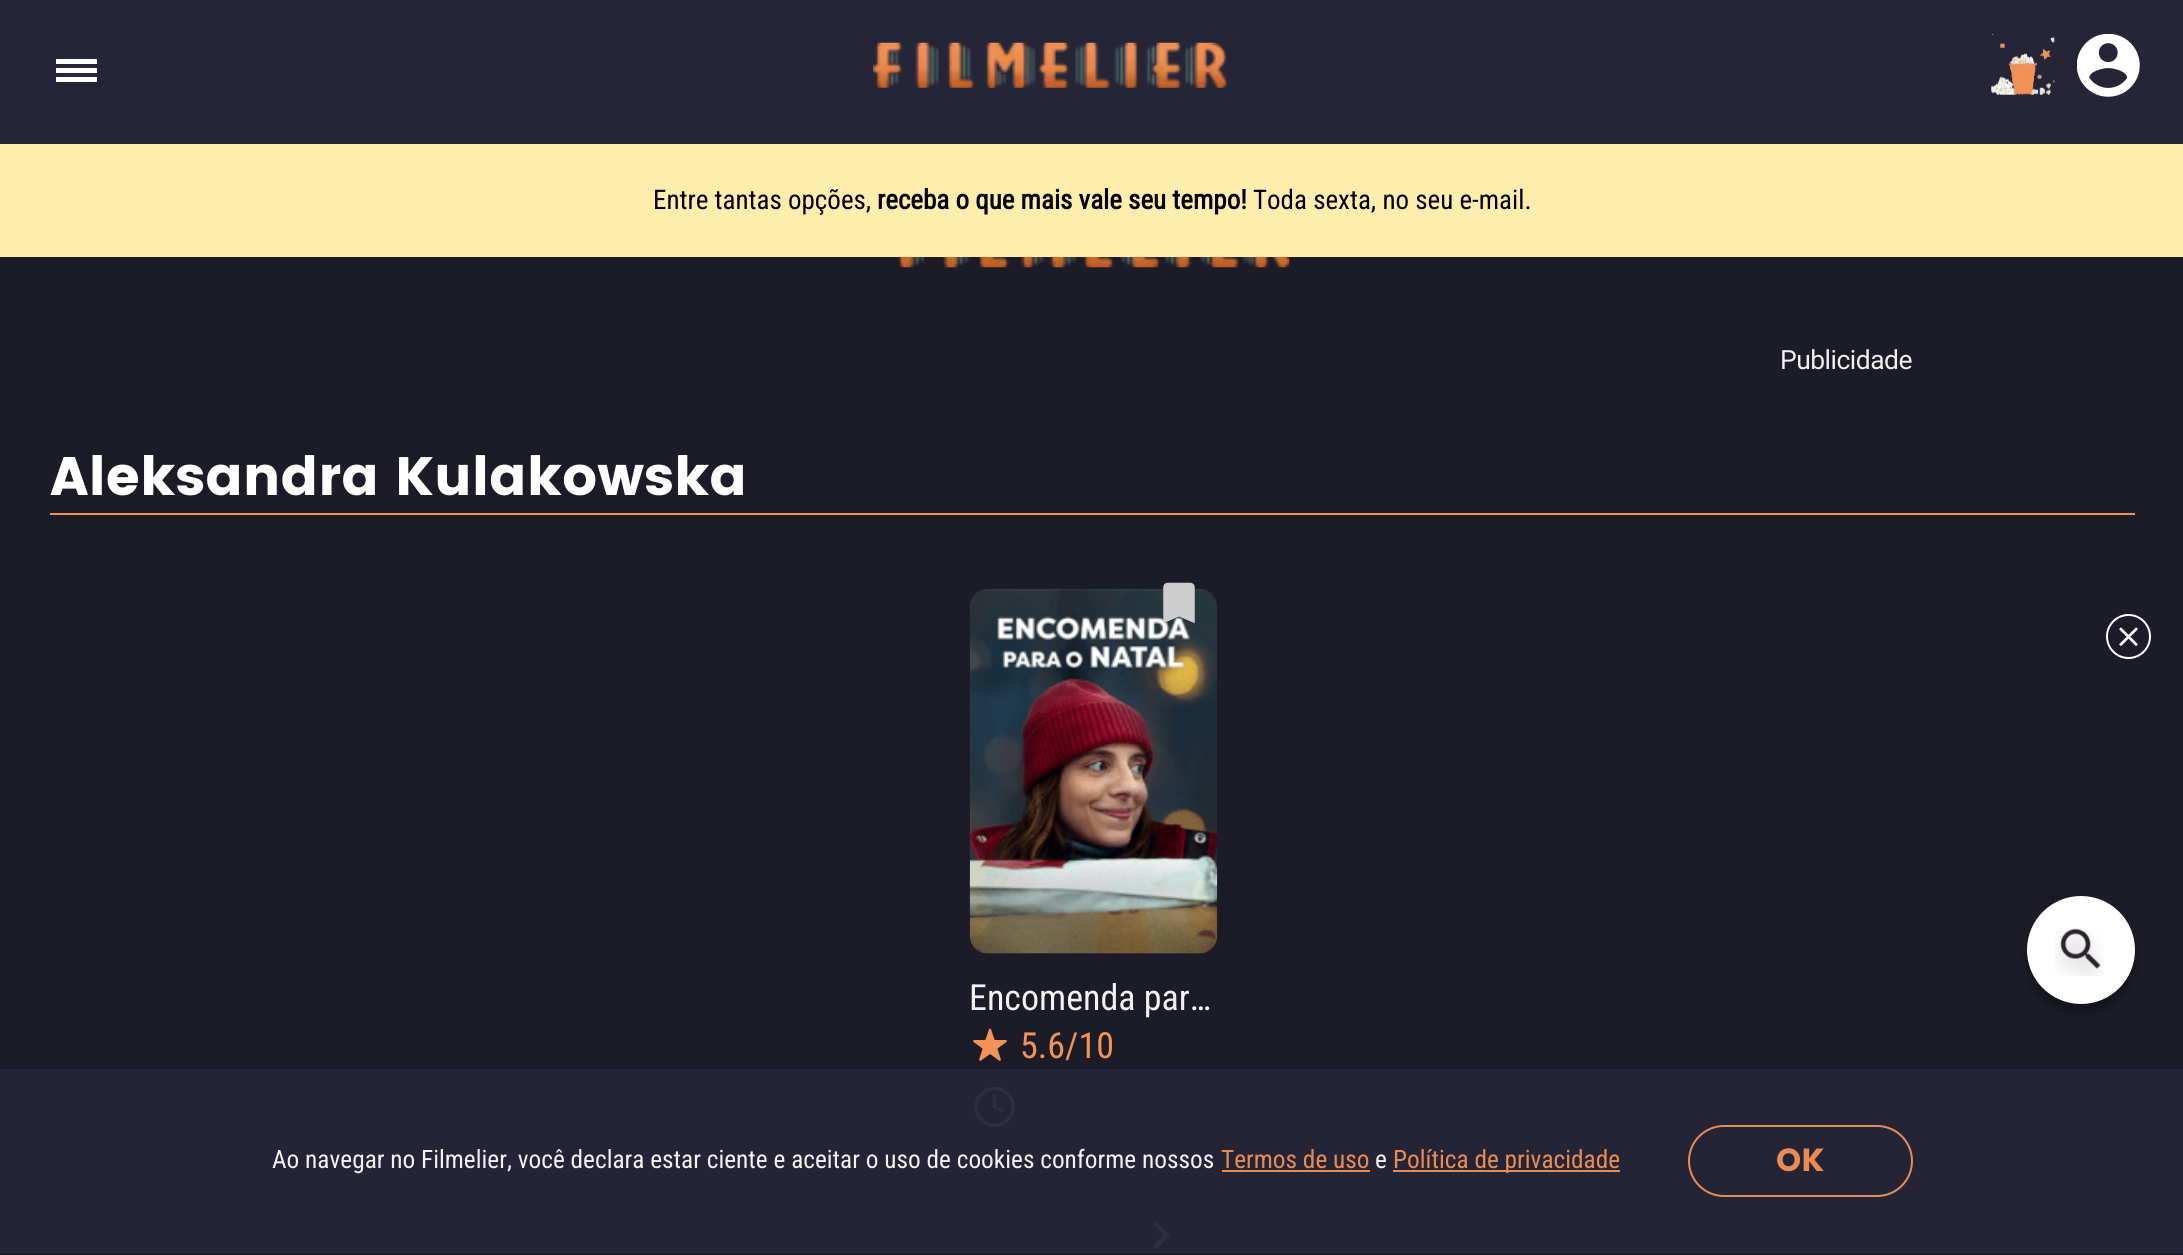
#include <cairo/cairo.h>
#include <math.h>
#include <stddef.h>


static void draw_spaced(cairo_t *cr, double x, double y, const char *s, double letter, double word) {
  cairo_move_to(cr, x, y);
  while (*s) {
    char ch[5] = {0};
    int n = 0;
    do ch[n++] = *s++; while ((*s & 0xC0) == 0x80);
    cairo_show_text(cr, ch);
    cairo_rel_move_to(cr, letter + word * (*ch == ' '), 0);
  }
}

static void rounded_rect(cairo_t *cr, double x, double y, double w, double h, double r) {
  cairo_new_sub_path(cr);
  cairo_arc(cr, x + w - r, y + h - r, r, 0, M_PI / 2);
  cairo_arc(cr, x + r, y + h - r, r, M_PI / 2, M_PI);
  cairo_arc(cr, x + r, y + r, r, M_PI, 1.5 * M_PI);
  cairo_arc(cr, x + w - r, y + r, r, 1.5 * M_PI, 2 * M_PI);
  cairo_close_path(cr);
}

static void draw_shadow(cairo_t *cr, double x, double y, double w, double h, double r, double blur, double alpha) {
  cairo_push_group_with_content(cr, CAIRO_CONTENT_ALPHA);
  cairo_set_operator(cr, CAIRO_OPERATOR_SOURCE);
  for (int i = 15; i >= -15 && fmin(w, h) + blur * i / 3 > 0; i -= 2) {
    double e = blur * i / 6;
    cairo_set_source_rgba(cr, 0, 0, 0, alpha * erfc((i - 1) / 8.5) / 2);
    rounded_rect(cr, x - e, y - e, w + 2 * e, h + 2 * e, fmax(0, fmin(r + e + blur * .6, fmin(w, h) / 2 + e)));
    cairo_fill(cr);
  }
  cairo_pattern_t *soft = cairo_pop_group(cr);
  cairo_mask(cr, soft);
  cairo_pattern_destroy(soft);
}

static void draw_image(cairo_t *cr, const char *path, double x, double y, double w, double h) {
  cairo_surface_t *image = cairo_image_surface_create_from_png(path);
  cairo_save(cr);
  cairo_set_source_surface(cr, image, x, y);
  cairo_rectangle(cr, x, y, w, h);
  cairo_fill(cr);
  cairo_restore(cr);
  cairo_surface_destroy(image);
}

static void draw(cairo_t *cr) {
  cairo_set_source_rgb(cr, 28 / 255.0, 28 / 255.0, 40 / 255.0);
  cairo_paint(cr);
  cairo_set_source_rgb(cr, 37 / 255.0, 37 / 255.0, 55 / 255.0);
  cairo_rectangle(cr, 0, 0, 2183, 144);
  cairo_fill(cr);
  cairo_set_source_rgb(cr, 1, 1, 1);
  cairo_rectangle(cr, 56, 68, 41, 5);
  cairo_fill(cr);
  cairo_rectangle(cr, 56, 59, 41, 5);
  cairo_fill(cr);
  cairo_rectangle(cr, 56, 77, 41, 5);
  cairo_fill(cr);
  draw_image(cr, "images/1.png", 873, 42, 354, 46);
  draw_image(cr, "images/2.png", 1991, 34, 64, 61);
  draw_image(cr, "images/3.png", 2077, 34, 63, 63);
  cairo_set_source_rgb(cr, 1, 237 / 255.0, 174 / 255.0);
  cairo_rectangle(cr, 0, 144, 2183, 113);
  cairo_fill(cr);
  draw_image(cr, "images/4.png", 897, 257, 393, 11);
  cairo_set_source_rgb(cr, 243 / 255.0, 146 / 255.0, 86 / 255.0);
  cairo_rectangle(cr, 50, 513, 2085, 2);
  cairo_fill(cr);
  draw_image(cr, "images/6.png", 969, 589, 249, 365);
  draw_image(cr, "images/5.png", 1163, 582, 32, 42);
  draw_image(cr, "images/7.png", 973, 1028, 34, 33);
  cairo_save(cr);
  cairo_rectangle(cr, 974, 1087, 41, 40);
  cairo_clip(cr);
  cairo_new_path(cr);
  cairo_move_to(cr, 994.5, 1125.5);
  cairo_curve_to(cr, 1004.5, 1125.5, 1013, 1117, 1013, 1107);
  cairo_curve_to(cr, 1013, 1097, 1004.5, 1088.5, 994.5, 1088.5);
  cairo_curve_to(cr, 984.5, 1088.5, 976, 1097, 976, 1107);
  cairo_curve_to(cr, 976, 1117, 984.5, 1125.5, 994.5, 1125.5);
  cairo_close_path(cr);
  cairo_set_source_rgb(cr, 242 / 255.0, 242 / 255.0, 242 / 255.0);
  cairo_set_line_width(cr, 3.4);
  cairo_set_line_cap(cr, CAIRO_LINE_CAP_ROUND);
  cairo_set_line_join(cr, CAIRO_LINE_JOIN_ROUND);
  cairo_stroke(cr);
  cairo_restore(cr);
  cairo_new_path(cr);
  cairo_move_to(cr, 994.5, 1096);
  cairo_line_to(cr, 994.5, 1107);
  cairo_line_to(cr, 1002, 1110.5);
  cairo_set_source_rgb(cr, 242 / 255.0, 242 / 255.0, 242 / 255.0);
  cairo_set_line_width(cr, 3.4);
  cairo_set_line_cap(cr, CAIRO_LINE_CAP_ROUND);
  cairo_set_line_join(cr, CAIRO_LINE_JOIN_ROUND);
  cairo_stroke(cr);
  cairo_set_source_rgb(cr, 1, 1, 1);
  cairo_set_fill_rule(cr, CAIRO_FILL_RULE_EVEN_ODD);
  cairo_new_path(cr);
  cairo_move_to(cr, 1156.5, 1222);
  cairo_line_to(cr, 1153.5, 1225);
  cairo_line_to(cr, 1163.5, 1235);
  cairo_line_to(cr, 1153.5, 1245.5);
  cairo_line_to(cr, 1156.5, 1249);
  cairo_line_to(cr, 1170, 1235);
  cairo_close_path(cr);
  cairo_fill(cr);
  cairo_arc(cr, 2128.5, 636.5, 21.5, 0, 2 * M_PI);
  cairo_set_line_width(cr, 2);
  cairo_set_line_cap(cr, CAIRO_LINE_CAP_BUTT);
  cairo_set_line_join(cr, CAIRO_LINE_JOIN_MITER);
  cairo_stroke(cr);
  draw_image(cr, "images/8.png", 2119, 627, 19, 20);
  cairo_set_source_rgb(cr, 0, 0, 0);
  draw_shadow(cr, 2027, 905, 108, 108, 54, 4.5, 0.3);
  cairo_set_source_rgb(cr, 1, 1, 1);
  cairo_arc(cr, 2081, 950, 54, 0, 2 * M_PI);
  cairo_fill(cr);
  draw_image(cr, "images/9.png", 2054, 928, 50, 48);
  cairo_set_source_rgba(cr, 37 / 255.0, 37 / 255.0, 55 / 255.0, 0.95);
  cairo_rectangle(cr, 0, 1069, 2183, 184);
  cairo_fill(cr);
  cairo_set_source_rgb(cr, 232 / 255.0, 140 / 255.0, 84 / 255.0);
  cairo_rectangle(cr, 1222, 1170, 148, 2);
  cairo_fill(cr);
  cairo_rectangle(cr, 1393, 1170, 227, 2);
  cairo_fill(cr);
  rounded_rect(cr, 1689, 1126, 223, 70, 35);
  cairo_stroke(cr);
  cairo_select_font_face(cr, "Roboto Condensed", CAIRO_FONT_SLANT_NORMAL, CAIRO_FONT_WEIGHT_NORMAL);
  cairo_set_font_size(cr, 27);
  cairo_set_source_rgb(cr, 0, 0, 0);
  cairo_move_to(cr, 653, 209);
  cairo_show_text(cr, "Entre tantas opções,");
  cairo_select_font_face(cr, "Roboto Condensed", CAIRO_FONT_SLANT_NORMAL, CAIRO_FONT_WEIGHT_BOLD);
  cairo_move_to(cr, 877, 209);
  cairo_show_text(cr, "receba o que mais vale seu tempo!");
  cairo_select_font_face(cr, "Roboto Condensed", CAIRO_FONT_SLANT_NORMAL, CAIRO_FONT_WEIGHT_NORMAL);
  cairo_move_to(cr, 1253, 209);
  cairo_show_text(cr, "Toda sexta, no seu e-mail.");
  cairo_select_font_face(cr, "Roboto", CAIRO_FONT_SLANT_NORMAL, CAIRO_FONT_WEIGHT_NORMAL);
  cairo_set_source_rgb(cr, 242 / 255.0, 242 / 255.0, 242 / 255.0);
  draw_spaced(cr, 1780, 369, "Publicidade", -0.5, 0);
  cairo_select_font_face(cr, "Poppins", CAIRO_FONT_SLANT_NORMAL, CAIRO_FONT_WEIGHT_BOLD);
  cairo_set_font_size(cr, 54);
  cairo_set_source_rgb(cr, 1, 1, 1);
  cairo_move_to(cr, 50, 495);
  cairo_show_text(cr, "Aleksandra Kulakowska");
  cairo_select_font_face(cr, "Roboto Condensed", CAIRO_FONT_SLANT_NORMAL, CAIRO_FONT_WEIGHT_NORMAL);
  cairo_set_font_size(cr, 36);
  cairo_set_source_rgb(cr, 242 / 255.0, 242 / 255.0, 242 / 255.0);
  cairo_move_to(cr, 969, 1010);
  cairo_show_text(cr, "Encomenda par…");
  cairo_set_source_rgb(cr, 243 / 255.0, 146 / 255.0, 86 / 255.0);
  cairo_move_to(cr, 1020, 1058);
  cairo_show_text(cr, "5.6/10");
  cairo_set_font_size(cr, 25.3);
  cairo_set_source_rgb(cr, 242 / 255.0, 242 / 255.0, 242 / 255.0);
  cairo_move_to(cr, 272, 1168);
  cairo_show_text(cr, "Ao navegar no Filmelier, você declara estar ciente e aceitar o uso de cookies conforme nossos");
  cairo_set_source_rgb(cr, 232 / 255.0, 140 / 255.0, 84 / 255.0);
  cairo_move_to(cr, 1221, 1168);
  cairo_show_text(cr, "Termos de uso");
  cairo_set_source_rgb(cr, 242 / 255.0, 242 / 255.0, 242 / 255.0);
  cairo_move_to(cr, 1375, 1168);
  cairo_show_text(cr, "e");
  cairo_set_source_rgb(cr, 232 / 255.0, 140 / 255.0, 84 / 255.0);
  cairo_move_to(cr, 1393, 1168);
  cairo_show_text(cr, "Política de privacidade");
  cairo_select_font_face(cr, "Poppins", CAIRO_FONT_SLANT_NORMAL, CAIRO_FONT_WEIGHT_BOLD);
  cairo_set_font_size(cr, 32);
  cairo_move_to(cr, 1776, 1171);
  cairo_show_text(cr, "OK");
}

int main(void) {
  cairo_surface_t *surface = cairo_image_surface_create(CAIRO_FORMAT_RGB24, 2183, 1255);
  cairo_t *cr = cairo_create(surface);
  cairo_font_options_t *options = cairo_font_options_create();
  cairo_font_options_set_hint_metrics(options, CAIRO_HINT_METRICS_OFF);
  cairo_font_options_set_hint_style(options, CAIRO_HINT_STYLE_NONE);
  cairo_set_font_options(cr, options);
  cairo_set_miter_limit(cr, 4);
  draw(cr);
  cairo_surface_write_to_png(surface, "out.png");
  cairo_font_options_destroy(options);
  cairo_destroy(cr);
  cairo_surface_destroy(surface);
  return 0;
}
